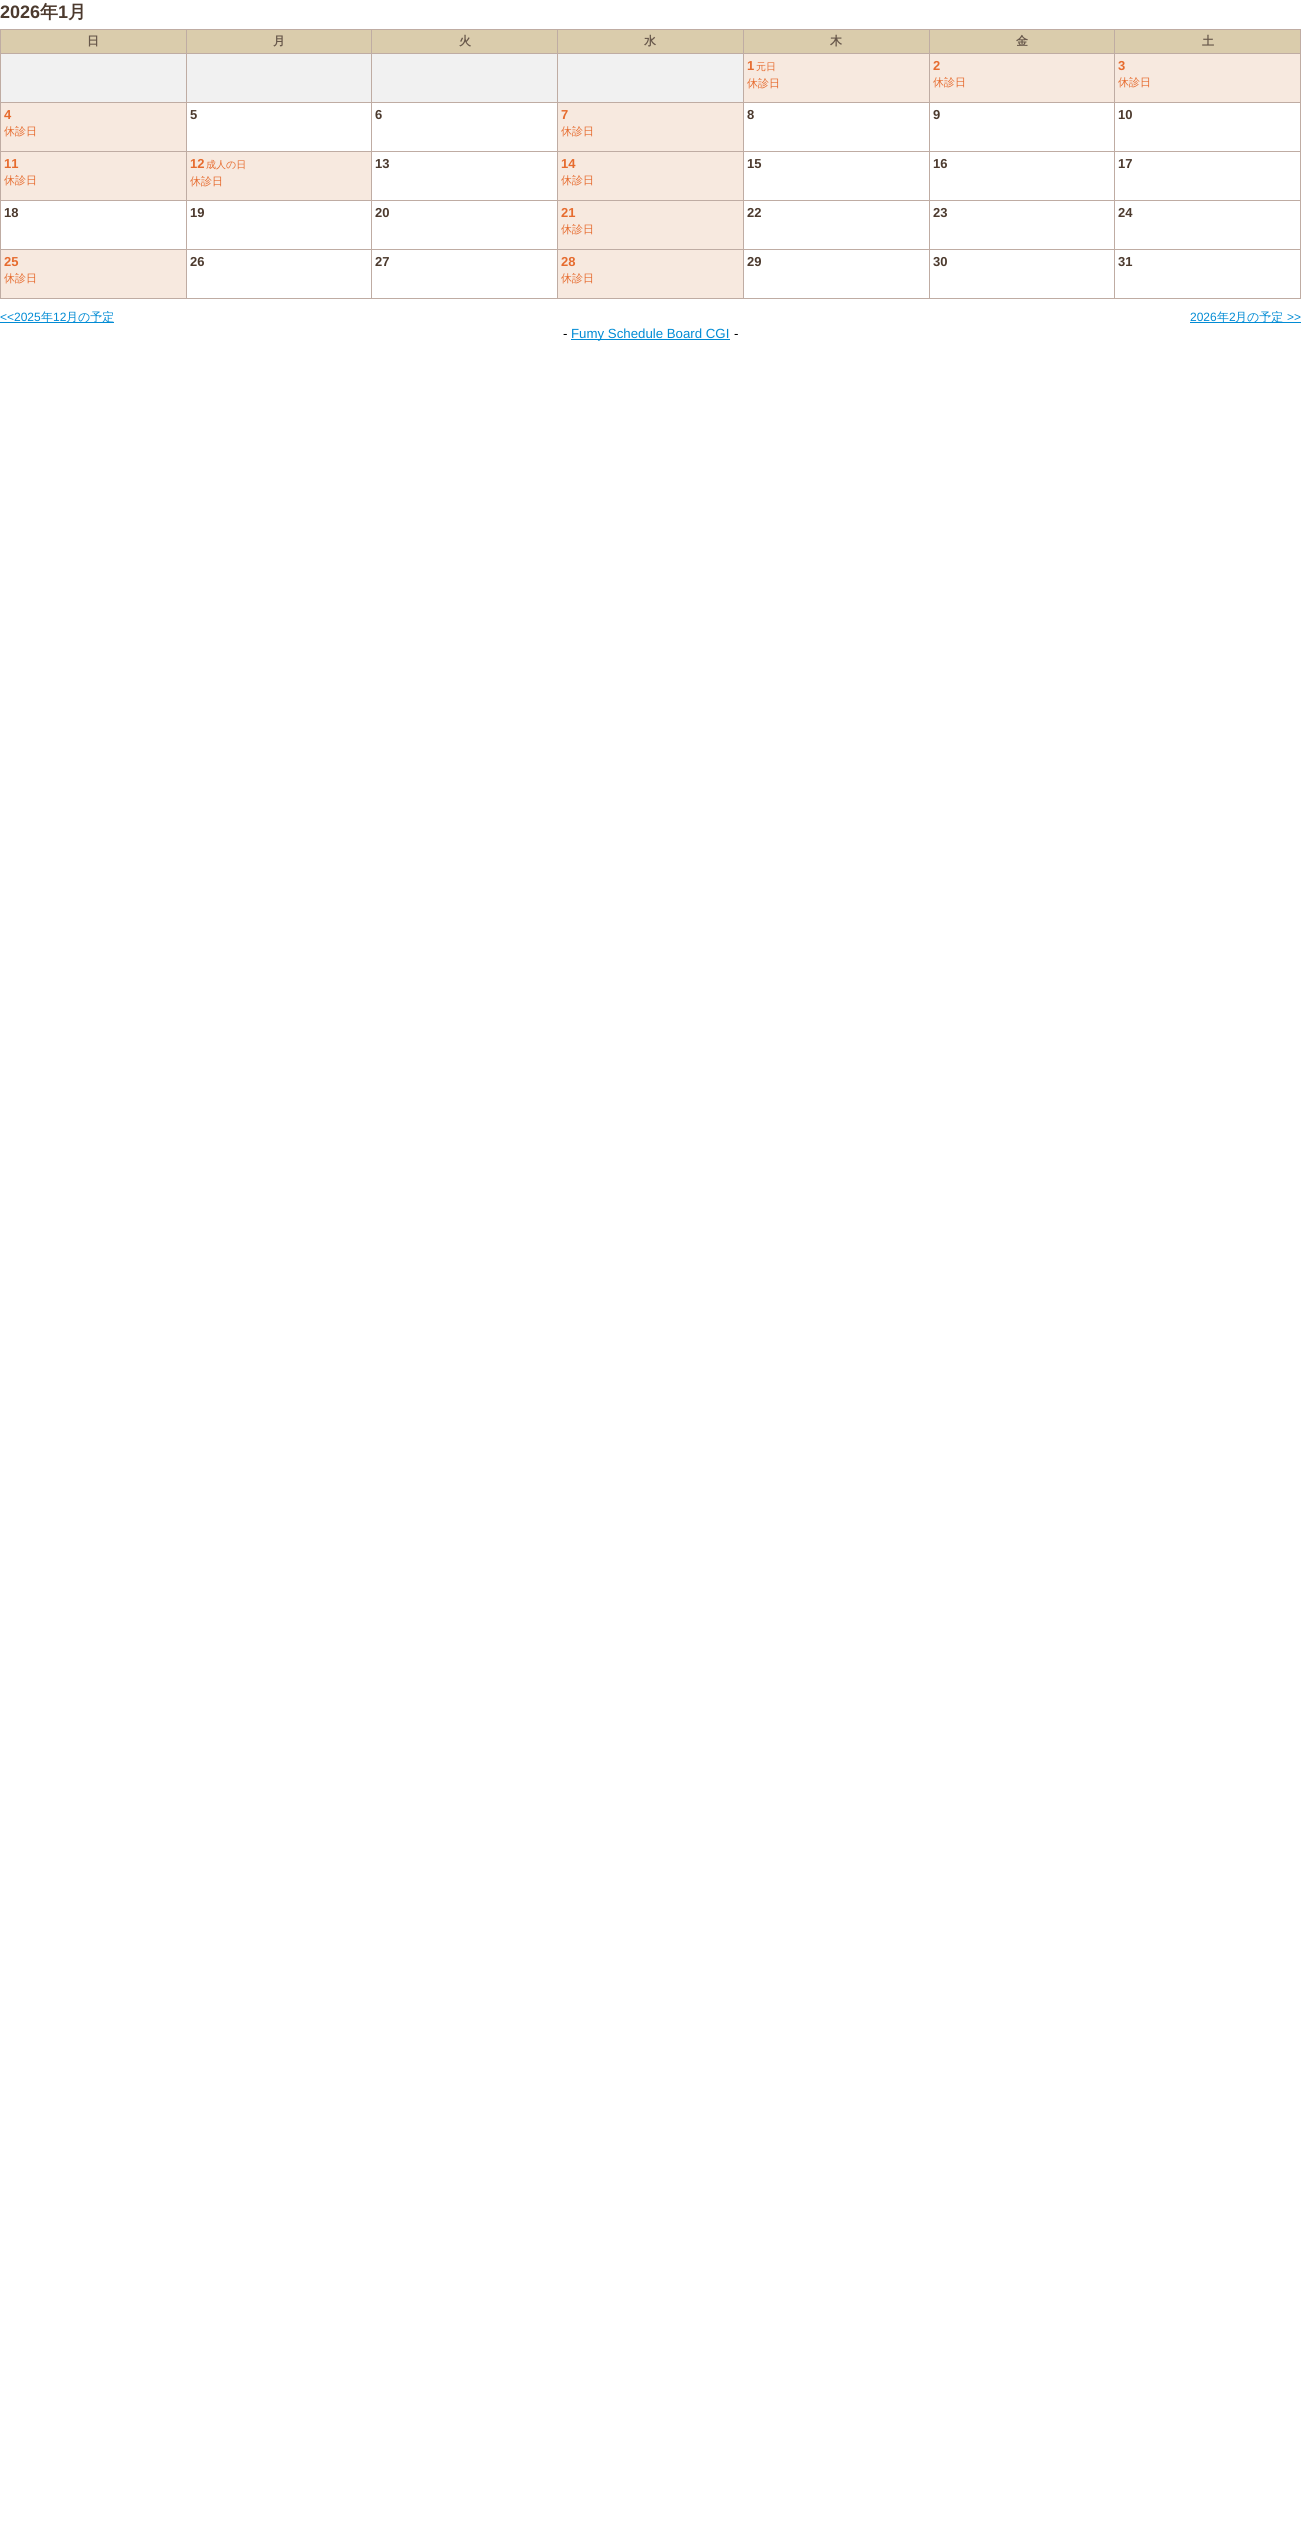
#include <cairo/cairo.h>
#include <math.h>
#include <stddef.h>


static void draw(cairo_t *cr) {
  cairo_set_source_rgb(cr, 1, 1, 1);
  cairo_paint(cr);
  cairo_set_source_rgb(cr, 218 / 255.0, 204 / 255.0, 172 / 255.0);
  cairo_rectangle(cr, 1, 30, 185, 23);
  cairo_fill(cr);
  cairo_set_source_rgb(cr, 191 / 255.0, 172 / 255.0, 163 / 255.0);
  cairo_rectangle(cr, 1114, 29, 187, 1);
  cairo_fill(cr);
  cairo_rectangle(cr, 1114, 53, 187, 1);
  cairo_fill(cr);
  cairo_rectangle(cr, 1114, 102, 187, 1);
  cairo_fill(cr);
  cairo_rectangle(cr, 1114, 151, 187, 1);
  cairo_fill(cr);
  cairo_rectangle(cr, 1114, 200, 187, 1);
  cairo_fill(cr);
  cairo_rectangle(cr, 1114, 249, 187, 1);
  cairo_fill(cr);
  cairo_rectangle(cr, 1300, 249, 1, 50);
  cairo_fill(cr);
  cairo_rectangle(cr, 1114, 298, 187, 1);
  cairo_fill(cr);
  cairo_rectangle(cr, 1114, 249, 1, 50);
  cairo_fill(cr);
  cairo_rectangle(cr, 929, 249, 186, 1);
  cairo_fill(cr);
  cairo_rectangle(cr, 1114, 200, 1, 50);
  cairo_fill(cr);
  cairo_rectangle(cr, 929, 200, 186, 1);
  cairo_fill(cr);
  cairo_rectangle(cr, 1114, 151, 1, 50);
  cairo_fill(cr);
  cairo_rectangle(cr, 929, 151, 186, 1);
  cairo_fill(cr);
  cairo_rectangle(cr, 1114, 102, 1, 50);
  cairo_fill(cr);
  cairo_rectangle(cr, 929, 102, 186, 1);
  cairo_fill(cr);
  cairo_rectangle(cr, 1114, 53, 1, 50);
  cairo_fill(cr);
  cairo_rectangle(cr, 929, 53, 186, 1);
  cairo_fill(cr);
  cairo_rectangle(cr, 1114, 29, 1, 25);
  cairo_fill(cr);
  cairo_rectangle(cr, 929, 29, 186, 1);
  cairo_fill(cr);
  cairo_rectangle(cr, 929, 298, 186, 1);
  cairo_fill(cr);
  cairo_rectangle(cr, 929, 249, 1, 50);
  cairo_fill(cr);
  cairo_rectangle(cr, 743, 249, 187, 1);
  cairo_fill(cr);
  cairo_rectangle(cr, 929, 200, 1, 50);
  cairo_fill(cr);
  cairo_rectangle(cr, 743, 200, 187, 1);
  cairo_fill(cr);
  cairo_rectangle(cr, 929, 151, 1, 50);
  cairo_fill(cr);
  cairo_rectangle(cr, 743, 151, 187, 1);
  cairo_fill(cr);
  cairo_rectangle(cr, 929, 102, 1, 50);
  cairo_fill(cr);
  cairo_rectangle(cr, 743, 102, 187, 1);
  cairo_fill(cr);
  cairo_rectangle(cr, 929, 53, 1, 50);
  cairo_fill(cr);
  cairo_rectangle(cr, 743, 53, 187, 1);
  cairo_fill(cr);
  cairo_rectangle(cr, 929, 29, 1, 25);
  cairo_fill(cr);
  cairo_rectangle(cr, 743, 29, 187, 1);
  cairo_fill(cr);
  cairo_rectangle(cr, 743, 298, 187, 1);
  cairo_fill(cr);
  cairo_rectangle(cr, 743, 249, 1, 50);
  cairo_fill(cr);
  cairo_rectangle(cr, 557, 249, 187, 1);
  cairo_fill(cr);
  cairo_rectangle(cr, 743, 200, 1, 50);
  cairo_fill(cr);
  cairo_rectangle(cr, 557, 200, 187, 1);
  cairo_fill(cr);
  cairo_rectangle(cr, 743, 151, 1, 50);
  cairo_fill(cr);
  cairo_rectangle(cr, 557, 151, 187, 1);
  cairo_fill(cr);
  cairo_rectangle(cr, 743, 102, 1, 50);
  cairo_fill(cr);
  cairo_rectangle(cr, 557, 102, 187, 1);
  cairo_fill(cr);
  cairo_rectangle(cr, 743, 53, 1, 50);
  cairo_fill(cr);
  cairo_rectangle(cr, 557, 53, 187, 1);
  cairo_fill(cr);
  cairo_rectangle(cr, 743, 29, 1, 25);
  cairo_fill(cr);
  cairo_rectangle(cr, 557, 29, 187, 1);
  cairo_fill(cr);
  cairo_rectangle(cr, 557, 298, 187, 1);
  cairo_fill(cr);
  cairo_rectangle(cr, 557, 249, 1, 50);
  cairo_fill(cr);
  cairo_rectangle(cr, 371, 249, 187, 1);
  cairo_fill(cr);
  cairo_rectangle(cr, 557, 200, 1, 50);
  cairo_fill(cr);
  cairo_rectangle(cr, 371, 200, 187, 1);
  cairo_fill(cr);
  cairo_rectangle(cr, 557, 151, 1, 50);
  cairo_fill(cr);
  cairo_rectangle(cr, 371, 151, 187, 1);
  cairo_fill(cr);
  cairo_rectangle(cr, 557, 102, 1, 50);
  cairo_fill(cr);
  cairo_rectangle(cr, 371, 102, 187, 1);
  cairo_fill(cr);
  cairo_rectangle(cr, 557, 53, 1, 50);
  cairo_fill(cr);
  cairo_rectangle(cr, 371, 53, 187, 1);
  cairo_fill(cr);
  cairo_rectangle(cr, 557, 29, 1, 25);
  cairo_fill(cr);
  cairo_rectangle(cr, 371, 29, 187, 1);
  cairo_fill(cr);
  cairo_rectangle(cr, 371, 298, 187, 1);
  cairo_fill(cr);
  cairo_rectangle(cr, 371, 249, 1, 50);
  cairo_fill(cr);
  cairo_rectangle(cr, 186, 249, 186, 1);
  cairo_fill(cr);
  cairo_rectangle(cr, 371, 200, 1, 50);
  cairo_fill(cr);
  cairo_rectangle(cr, 186, 200, 186, 1);
  cairo_fill(cr);
  cairo_rectangle(cr, 371, 151, 1, 50);
  cairo_fill(cr);
  cairo_rectangle(cr, 186, 151, 186, 1);
  cairo_fill(cr);
  cairo_rectangle(cr, 371, 102, 1, 50);
  cairo_fill(cr);
  cairo_rectangle(cr, 186, 102, 186, 1);
  cairo_fill(cr);
  cairo_rectangle(cr, 371, 53, 1, 50);
  cairo_fill(cr);
  cairo_rectangle(cr, 186, 53, 186, 1);
  cairo_fill(cr);
  cairo_rectangle(cr, 371, 29, 1, 25);
  cairo_fill(cr);
  cairo_rectangle(cr, 186, 29, 186, 1);
  cairo_fill(cr);
  cairo_rectangle(cr, 186, 298, 186, 1);
  cairo_fill(cr);
  cairo_rectangle(cr, 186, 249, 1, 50);
  cairo_fill(cr);
  cairo_rectangle(cr, 0, 249, 187, 1);
  cairo_fill(cr);
  cairo_rectangle(cr, 186, 200, 1, 50);
  cairo_fill(cr);
  cairo_rectangle(cr, 0, 200, 187, 1);
  cairo_fill(cr);
  cairo_rectangle(cr, 186, 151, 1, 50);
  cairo_fill(cr);
  cairo_rectangle(cr, 0, 151, 187, 1);
  cairo_fill(cr);
  cairo_rectangle(cr, 186, 102, 1, 50);
  cairo_fill(cr);
  cairo_rectangle(cr, 0, 102, 187, 1);
  cairo_fill(cr);
  cairo_rectangle(cr, 186, 53, 1, 50);
  cairo_fill(cr);
  cairo_rectangle(cr, 0, 53, 187, 1);
  cairo_fill(cr);
  cairo_rectangle(cr, 186, 29, 1, 25);
  cairo_fill(cr);
  cairo_rectangle(cr, 0, 29, 187, 1);
  cairo_fill(cr);
  cairo_rectangle(cr, 0, 298, 187, 1);
  cairo_fill(cr);
  cairo_rectangle(cr, 0, 249, 1, 50);
  cairo_fill(cr);
  cairo_rectangle(cr, 0, 200, 1, 50);
  cairo_fill(cr);
  cairo_rectangle(cr, 0, 151, 1, 50);
  cairo_fill(cr);
  cairo_rectangle(cr, 0, 102, 1, 50);
  cairo_fill(cr);
  cairo_rectangle(cr, 0, 53, 1, 50);
  cairo_fill(cr);
  cairo_rectangle(cr, 0, 29, 1, 25);
  cairo_fill(cr);
  cairo_set_source_rgb(cr, 218 / 255.0, 204 / 255.0, 172 / 255.0);
  cairo_rectangle(cr, 187, 30, 184, 23);
  cairo_fill(cr);
  cairo_rectangle(cr, 372, 30, 185, 23);
  cairo_fill(cr);
  cairo_rectangle(cr, 558, 30, 185, 23);
  cairo_fill(cr);
  cairo_rectangle(cr, 744, 30, 185, 23);
  cairo_fill(cr);
  cairo_rectangle(cr, 930, 30, 184, 23);
  cairo_fill(cr);
  cairo_rectangle(cr, 1115, 30, 185, 23);
  cairo_fill(cr);
  cairo_set_source_rgb(cr, 191 / 255.0, 172 / 255.0, 163 / 255.0);
  cairo_rectangle(cr, 1300, 200, 1, 50);
  cairo_fill(cr);
  cairo_rectangle(cr, 1300, 151, 1, 50);
  cairo_fill(cr);
  cairo_rectangle(cr, 1300, 102, 1, 50);
  cairo_fill(cr);
  cairo_rectangle(cr, 1300, 53, 1, 50);
  cairo_fill(cr);
  cairo_rectangle(cr, 1300, 29, 1, 25);
  cairo_fill(cr);
  cairo_set_source_rgb(cr, 241 / 255.0, 241 / 255.0, 241 / 255.0);
  cairo_rectangle(cr, 1, 54, 185, 48);
  cairo_fill(cr);
  cairo_rectangle(cr, 187, 54, 184, 48);
  cairo_fill(cr);
  cairo_rectangle(cr, 372, 54, 185, 48);
  cairo_fill(cr);
  cairo_rectangle(cr, 558, 54, 185, 48);
  cairo_fill(cr);
  cairo_set_source_rgb(cr, 247 / 255.0, 233 / 255.0, 223 / 255.0);
  cairo_rectangle(cr, 744, 54, 185, 48);
  cairo_fill(cr);
  cairo_rectangle(cr, 930, 54, 184, 48);
  cairo_fill(cr);
  cairo_rectangle(cr, 1115, 54, 185, 48);
  cairo_fill(cr);
  cairo_rectangle(cr, 1, 103, 185, 48);
  cairo_fill(cr);
  cairo_rectangle(cr, 558, 103, 185, 48);
  cairo_fill(cr);
  cairo_rectangle(cr, 1, 152, 185, 48);
  cairo_fill(cr);
  cairo_rectangle(cr, 187, 152, 184, 48);
  cairo_fill(cr);
  cairo_rectangle(cr, 558, 152, 185, 48);
  cairo_fill(cr);
  cairo_rectangle(cr, 558, 201, 185, 48);
  cairo_fill(cr);
  cairo_rectangle(cr, 1, 250, 185, 48);
  cairo_fill(cr);
  cairo_rectangle(cr, 558, 250, 185, 48);
  cairo_fill(cr);
  cairo_set_source_rgb(cr, 1 / 255.0, 139 / 255.0, 212 / 255.0);
  cairo_rectangle(cr, 0, 322, 114, 1);
  cairo_fill(cr);
  cairo_rectangle(cr, 1190, 322, 111, 1);
  cairo_fill(cr);
  cairo_rectangle(cr, 571, 339, 159, 1);
  cairo_fill(cr);
  cairo_select_font_face(cr, "Liberation Sans", CAIRO_FONT_SLANT_NORMAL, CAIRO_FONT_WEIGHT_BOLD);
  cairo_set_font_size(cr, 18);
  cairo_set_source_rgb(cr, 76 / 255.0, 58 / 255.0, 46 / 255.0);
  cairo_move_to(cr, 0, 18);
  cairo_show_text(cr, "2026");
  cairo_select_font_face(cr, "WenQuanYi Zen Hei", CAIRO_FONT_SLANT_NORMAL, CAIRO_FONT_WEIGHT_BOLD);
  cairo_move_to(cr, 40, 18);
  cairo_show_text(cr, "年");
  cairo_select_font_face(cr, "Liberation Sans", CAIRO_FONT_SLANT_NORMAL, CAIRO_FONT_WEIGHT_BOLD);
  cairo_move_to(cr, 58, 18);
  cairo_show_text(cr, "1");
  cairo_select_font_face(cr, "WenQuanYi Zen Hei", CAIRO_FONT_SLANT_NORMAL, CAIRO_FONT_WEIGHT_BOLD);
  cairo_move_to(cr, 68, 18);
  cairo_show_text(cr, "月");
  cairo_set_font_size(cr, 12);
  cairo_set_source_rgb(cr, 103 / 255.0, 87 / 255.0, 74 / 255.0);
  cairo_move_to(cr, 87, 45);
  cairo_show_text(cr, "日");
  cairo_move_to(cr, 273, 45);
  cairo_show_text(cr, "月");
  cairo_move_to(cr, 459, 45);
  cairo_show_text(cr, "火");
  cairo_move_to(cr, 644, 45);
  cairo_show_text(cr, "水");
  cairo_move_to(cr, 830, 45);
  cairo_show_text(cr, "木");
  cairo_move_to(cr, 1016, 45);
  cairo_show_text(cr, "金");
  cairo_move_to(cr, 1202, 45);
  cairo_show_text(cr, "土");
  cairo_select_font_face(cr, "Liberation Sans", CAIRO_FONT_SLANT_NORMAL, CAIRO_FONT_WEIGHT_BOLD);
  cairo_set_font_size(cr, 13);
  cairo_set_source_rgb(cr, 230 / 255.0, 107 / 255.0, 46 / 255.0);
  cairo_move_to(cr, 747, 70);
  cairo_show_text(cr, "1");
  cairo_select_font_face(cr, "WenQuanYi Zen Hei Medium", CAIRO_FONT_SLANT_NORMAL, CAIRO_FONT_WEIGHT_NORMAL);
  cairo_set_font_size(cr, 10);
  cairo_move_to(cr, 756, 70);
  cairo_show_text(cr, "元日");
  cairo_set_font_size(cr, 11);
  cairo_move_to(cr, 747, 87);
  cairo_show_text(cr, "休診日");
  cairo_select_font_face(cr, "Liberation Sans", CAIRO_FONT_SLANT_NORMAL, CAIRO_FONT_WEIGHT_BOLD);
  cairo_set_font_size(cr, 13);
  cairo_move_to(cr, 933, 70);
  cairo_show_text(cr, "2");
  cairo_select_font_face(cr, "WenQuanYi Zen Hei Medium", CAIRO_FONT_SLANT_NORMAL, CAIRO_FONT_WEIGHT_NORMAL);
  cairo_set_font_size(cr, 11);
  cairo_move_to(cr, 933, 86);
  cairo_show_text(cr, "休診日");
  cairo_select_font_face(cr, "Liberation Sans", CAIRO_FONT_SLANT_NORMAL, CAIRO_FONT_WEIGHT_BOLD);
  cairo_set_font_size(cr, 13);
  cairo_move_to(cr, 1118, 70);
  cairo_show_text(cr, "3");
  cairo_select_font_face(cr, "WenQuanYi Zen Hei Medium", CAIRO_FONT_SLANT_NORMAL, CAIRO_FONT_WEIGHT_NORMAL);
  cairo_set_font_size(cr, 11);
  cairo_move_to(cr, 1118, 86);
  cairo_show_text(cr, "休診日");
  cairo_select_font_face(cr, "Liberation Sans", CAIRO_FONT_SLANT_NORMAL, CAIRO_FONT_WEIGHT_BOLD);
  cairo_set_font_size(cr, 13);
  cairo_move_to(cr, 4, 119);
  cairo_show_text(cr, "4");
  cairo_select_font_face(cr, "WenQuanYi Zen Hei Medium", CAIRO_FONT_SLANT_NORMAL, CAIRO_FONT_WEIGHT_NORMAL);
  cairo_set_font_size(cr, 11);
  cairo_move_to(cr, 4, 135);
  cairo_show_text(cr, "休診日");
  cairo_select_font_face(cr, "Liberation Sans", CAIRO_FONT_SLANT_NORMAL, CAIRO_FONT_WEIGHT_BOLD);
  cairo_set_font_size(cr, 13);
  cairo_set_source_rgb(cr, 76 / 255.0, 58 / 255.0, 46 / 255.0);
  cairo_move_to(cr, 190, 119);
  cairo_show_text(cr, "5");
  cairo_move_to(cr, 375, 119);
  cairo_show_text(cr, "6");
  cairo_set_source_rgb(cr, 230 / 255.0, 107 / 255.0, 46 / 255.0);
  cairo_move_to(cr, 561, 119);
  cairo_show_text(cr, "7");
  cairo_select_font_face(cr, "WenQuanYi Zen Hei Medium", CAIRO_FONT_SLANT_NORMAL, CAIRO_FONT_WEIGHT_NORMAL);
  cairo_set_font_size(cr, 11);
  cairo_move_to(cr, 561, 135);
  cairo_show_text(cr, "休診日");
  cairo_select_font_face(cr, "Liberation Sans", CAIRO_FONT_SLANT_NORMAL, CAIRO_FONT_WEIGHT_BOLD);
  cairo_set_font_size(cr, 13);
  cairo_set_source_rgb(cr, 76 / 255.0, 58 / 255.0, 46 / 255.0);
  cairo_move_to(cr, 747, 119);
  cairo_show_text(cr, "8");
  cairo_move_to(cr, 933, 119);
  cairo_show_text(cr, "9");
  cairo_move_to(cr, 1118, 119);
  cairo_show_text(cr, "10");
  cairo_set_source_rgb(cr, 230 / 255.0, 107 / 255.0, 46 / 255.0);
  cairo_move_to(cr, 4, 168);
  cairo_show_text(cr, "11");
  cairo_select_font_face(cr, "WenQuanYi Zen Hei Medium", CAIRO_FONT_SLANT_NORMAL, CAIRO_FONT_WEIGHT_NORMAL);
  cairo_set_font_size(cr, 11);
  cairo_move_to(cr, 4, 184);
  cairo_show_text(cr, "休診日");
  cairo_select_font_face(cr, "Liberation Sans", CAIRO_FONT_SLANT_NORMAL, CAIRO_FONT_WEIGHT_BOLD);
  cairo_set_font_size(cr, 13);
  cairo_move_to(cr, 190, 168);
  cairo_show_text(cr, "12");
  cairo_select_font_face(cr, "WenQuanYi Zen Hei Medium", CAIRO_FONT_SLANT_NORMAL, CAIRO_FONT_WEIGHT_NORMAL);
  cairo_set_font_size(cr, 10);
  cairo_move_to(cr, 206, 168);
  cairo_show_text(cr, "成人の日");
  cairo_set_font_size(cr, 11);
  cairo_move_to(cr, 190, 185);
  cairo_show_text(cr, "休診日");
  cairo_select_font_face(cr, "Liberation Sans", CAIRO_FONT_SLANT_NORMAL, CAIRO_FONT_WEIGHT_BOLD);
  cairo_set_font_size(cr, 13);
  cairo_set_source_rgb(cr, 76 / 255.0, 58 / 255.0, 46 / 255.0);
  cairo_move_to(cr, 375, 168);
  cairo_show_text(cr, "13");
  cairo_set_source_rgb(cr, 230 / 255.0, 107 / 255.0, 46 / 255.0);
  cairo_move_to(cr, 561, 168);
  cairo_show_text(cr, "14");
  cairo_select_font_face(cr, "WenQuanYi Zen Hei Medium", CAIRO_FONT_SLANT_NORMAL, CAIRO_FONT_WEIGHT_NORMAL);
  cairo_set_font_size(cr, 11);
  cairo_move_to(cr, 561, 184);
  cairo_show_text(cr, "休診日");
  cairo_select_font_face(cr, "Liberation Sans", CAIRO_FONT_SLANT_NORMAL, CAIRO_FONT_WEIGHT_BOLD);
  cairo_set_font_size(cr, 13);
  cairo_set_source_rgb(cr, 76 / 255.0, 58 / 255.0, 46 / 255.0);
  cairo_move_to(cr, 747, 168);
  cairo_show_text(cr, "15");
  cairo_move_to(cr, 933, 168);
  cairo_show_text(cr, "16");
  cairo_move_to(cr, 1118, 168);
  cairo_show_text(cr, "17");
  cairo_move_to(cr, 4, 217);
  cairo_show_text(cr, "18");
  cairo_move_to(cr, 190, 217);
  cairo_show_text(cr, "19");
  cairo_move_to(cr, 375, 217);
  cairo_show_text(cr, "20");
  cairo_set_source_rgb(cr, 230 / 255.0, 107 / 255.0, 46 / 255.0);
  cairo_move_to(cr, 561, 217);
  cairo_show_text(cr, "21");
  cairo_select_font_face(cr, "WenQuanYi Zen Hei Medium", CAIRO_FONT_SLANT_NORMAL, CAIRO_FONT_WEIGHT_NORMAL);
  cairo_set_font_size(cr, 11);
  cairo_move_to(cr, 561, 233);
  cairo_show_text(cr, "休診日");
  cairo_select_font_face(cr, "Liberation Sans", CAIRO_FONT_SLANT_NORMAL, CAIRO_FONT_WEIGHT_BOLD);
  cairo_set_font_size(cr, 13);
  cairo_set_source_rgb(cr, 76 / 255.0, 58 / 255.0, 46 / 255.0);
  cairo_move_to(cr, 747, 217);
  cairo_show_text(cr, "22");
  cairo_move_to(cr, 933, 217);
  cairo_show_text(cr, "23");
  cairo_move_to(cr, 1118, 217);
  cairo_show_text(cr, "24");
  cairo_set_source_rgb(cr, 230 / 255.0, 107 / 255.0, 46 / 255.0);
  cairo_move_to(cr, 4, 266);
  cairo_show_text(cr, "25");
  cairo_select_font_face(cr, "WenQuanYi Zen Hei Medium", CAIRO_FONT_SLANT_NORMAL, CAIRO_FONT_WEIGHT_NORMAL);
  cairo_set_font_size(cr, 11);
  cairo_move_to(cr, 4, 282);
  cairo_show_text(cr, "休診日");
  cairo_select_font_face(cr, "Liberation Sans", CAIRO_FONT_SLANT_NORMAL, CAIRO_FONT_WEIGHT_BOLD);
  cairo_set_font_size(cr, 13);
  cairo_set_source_rgb(cr, 76 / 255.0, 58 / 255.0, 46 / 255.0);
  cairo_move_to(cr, 190, 266);
  cairo_show_text(cr, "26");
  cairo_move_to(cr, 375, 266);
  cairo_show_text(cr, "27");
  cairo_set_source_rgb(cr, 230 / 255.0, 107 / 255.0, 46 / 255.0);
  cairo_move_to(cr, 561, 266);
  cairo_show_text(cr, "28");
  cairo_select_font_face(cr, "WenQuanYi Zen Hei Medium", CAIRO_FONT_SLANT_NORMAL, CAIRO_FONT_WEIGHT_NORMAL);
  cairo_set_font_size(cr, 11);
  cairo_move_to(cr, 561, 282);
  cairo_show_text(cr, "休診日");
  cairo_select_font_face(cr, "Liberation Sans", CAIRO_FONT_SLANT_NORMAL, CAIRO_FONT_WEIGHT_BOLD);
  cairo_set_font_size(cr, 13);
  cairo_set_source_rgb(cr, 76 / 255.0, 58 / 255.0, 46 / 255.0);
  cairo_move_to(cr, 747, 266);
  cairo_show_text(cr, "29");
  cairo_move_to(cr, 933, 266);
  cairo_show_text(cr, "30");
  cairo_move_to(cr, 1118, 266);
  cairo_show_text(cr, "31");
  cairo_select_font_face(cr, "Liberation Sans", CAIRO_FONT_SLANT_NORMAL, CAIRO_FONT_WEIGHT_NORMAL);
  cairo_set_font_size(cr, 12);
  cairo_set_source_rgb(cr, 1 / 255.0, 139 / 255.0, 212 / 255.0);
  cairo_move_to(cr, 0, 321);
  cairo_show_text(cr, "<<2025");
  cairo_select_font_face(cr, "WenQuanYi Zen Hei Medium", CAIRO_FONT_SLANT_NORMAL, CAIRO_FONT_WEIGHT_NORMAL);
  cairo_move_to(cr, 41, 321);
  cairo_show_text(cr, "年");
  cairo_select_font_face(cr, "Liberation Sans", CAIRO_FONT_SLANT_NORMAL, CAIRO_FONT_WEIGHT_NORMAL);
  cairo_move_to(cr, 53, 321);
  cairo_show_text(cr, "12");
  cairo_select_font_face(cr, "WenQuanYi Zen Hei Medium", CAIRO_FONT_SLANT_NORMAL, CAIRO_FONT_WEIGHT_NORMAL);
  cairo_move_to(cr, 66, 321);
  cairo_show_text(cr, "月の予定");
  cairo_select_font_face(cr, "Liberation Sans", CAIRO_FONT_SLANT_NORMAL, CAIRO_FONT_WEIGHT_NORMAL);
  cairo_move_to(cr, 1190, 321);
  cairo_show_text(cr, "2026");
  cairo_select_font_face(cr, "WenQuanYi Zen Hei Medium", CAIRO_FONT_SLANT_NORMAL, CAIRO_FONT_WEIGHT_NORMAL);
  cairo_move_to(cr, 1217, 321);
  cairo_show_text(cr, "年");
  cairo_select_font_face(cr, "Liberation Sans", CAIRO_FONT_SLANT_NORMAL, CAIRO_FONT_WEIGHT_NORMAL);
  cairo_move_to(cr, 1229, 321);
  cairo_show_text(cr, "2");
  cairo_select_font_face(cr, "WenQuanYi Zen Hei Medium", CAIRO_FONT_SLANT_NORMAL, CAIRO_FONT_WEIGHT_NORMAL);
  cairo_move_to(cr, 1235, 321);
  cairo_show_text(cr, "月の予定");
  cairo_select_font_face(cr, "Liberation Sans", CAIRO_FONT_SLANT_NORMAL, CAIRO_FONT_WEIGHT_NORMAL);
  cairo_move_to(cr, 1287, 321);
  cairo_show_text(cr, ">>");
  cairo_set_font_size(cr, 13.25);
  cairo_set_source_rgb(cr, 0, 0, 0);
  cairo_move_to(cr, 563, 338);
  cairo_show_text(cr, "-");
  cairo_set_source_rgb(cr, 1 / 255.0, 139 / 255.0, 212 / 255.0);
  cairo_move_to(cr, 571, 338);
  cairo_show_text(cr, "Fumy Schedule Board CGI");
  cairo_set_source_rgb(cr, 0, 0, 0);
  cairo_move_to(cr, 734, 338);
  cairo_show_text(cr, "-");
}

int main(void) {
  cairo_surface_t *surface = cairo_image_surface_create(CAIRO_FORMAT_RGB24, 1301, 2528);
  cairo_t *cr = cairo_create(surface);
  cairo_font_options_t *options = cairo_font_options_create();
  cairo_font_options_set_hint_metrics(options, CAIRO_HINT_METRICS_OFF);
  cairo_font_options_set_hint_style(options, CAIRO_HINT_STYLE_NONE);
  cairo_set_font_options(cr, options);
  cairo_set_miter_limit(cr, 4);
  draw(cr);
  cairo_surface_write_to_png(surface, "out.png");
  cairo_font_options_destroy(options);
  cairo_destroy(cr);
  cairo_surface_destroy(surface);
  return 0;
}
